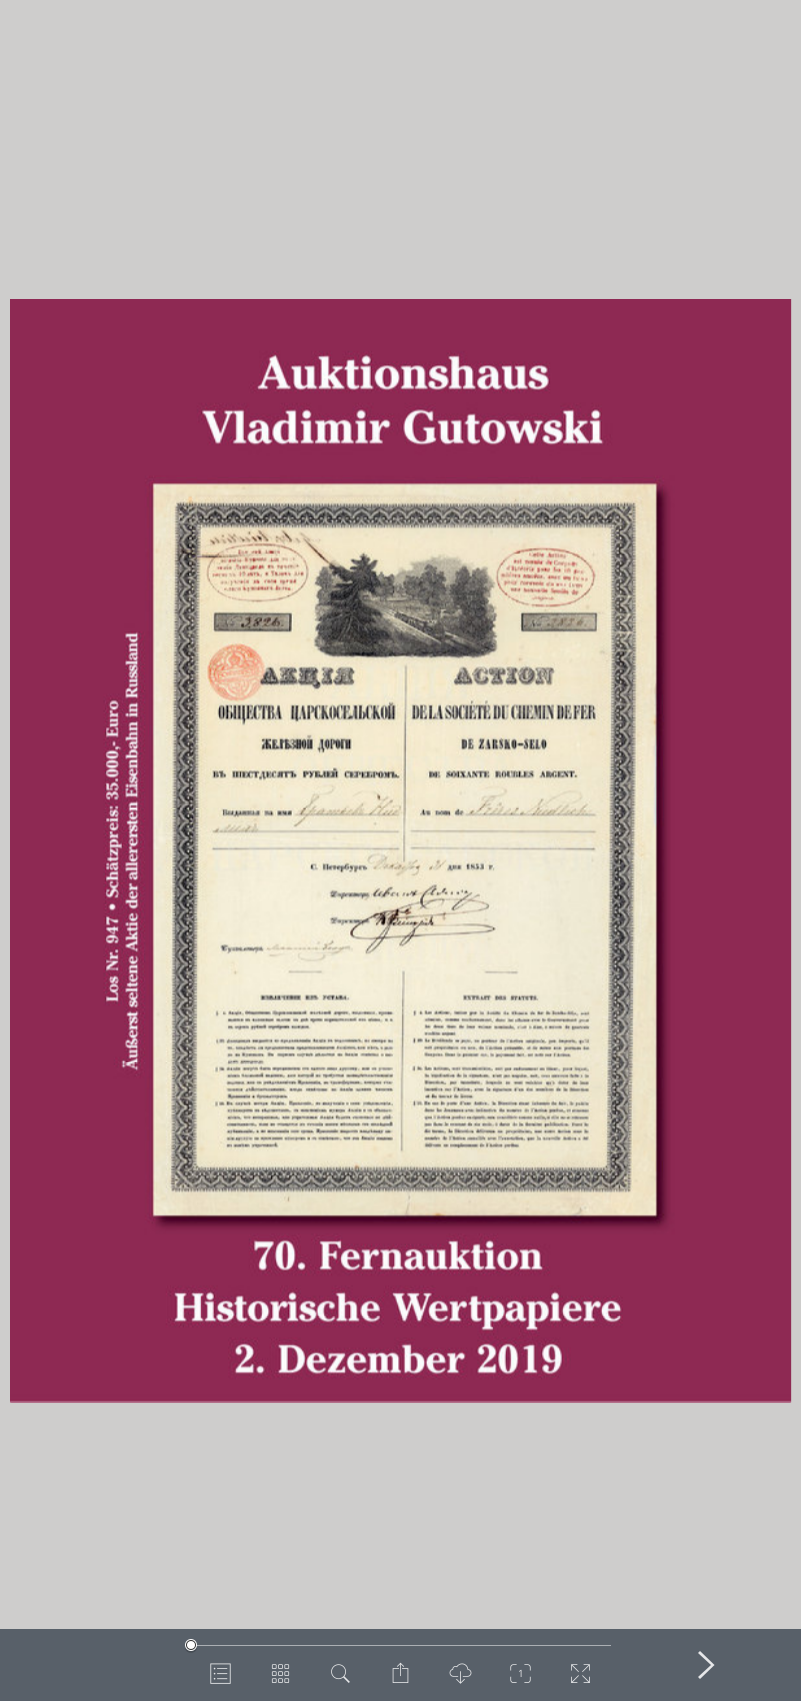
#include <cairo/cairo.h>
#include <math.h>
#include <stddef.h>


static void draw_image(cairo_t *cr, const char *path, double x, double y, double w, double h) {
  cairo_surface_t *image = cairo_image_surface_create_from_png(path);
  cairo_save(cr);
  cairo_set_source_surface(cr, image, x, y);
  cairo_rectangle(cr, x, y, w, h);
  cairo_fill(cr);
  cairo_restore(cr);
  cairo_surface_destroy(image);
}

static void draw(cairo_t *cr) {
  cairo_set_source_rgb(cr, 206 / 255.0, 205 / 255.0, 204 / 255.0);
  cairo_paint(cr);
  draw_image(cr, "images/3.png", 11, 1402, 779, 1);
  draw_image(cr, "images/1.png", 10, 299, 782, 1104);
  draw_image(cr, "images/2.png", 10, 299, 782, 1104);
  cairo_set_source_rgb(cr, 88 / 255.0, 96 / 255.0, 105 / 255.0);
  cairo_rectangle(cr, 0, 1629, 801, 72);
  cairo_fill(cr);
  cairo_set_source_rgb(cr, 70 / 255.0, 77 / 255.0, 84 / 255.0);
  cairo_new_path(cr);
  cairo_move_to(cr, 185, 1646);
  cairo_curve_to(cr, 183.5, 1655, 198.5, 1655, 197, 1646);
  cairo_curve_to(cr, 196, 1652.5, 186, 1652.5, 185, 1646);
  cairo_close_path(cr);
  cairo_fill(cr);
  cairo_set_source_rgb(cr, 172 / 255.0, 176 / 255.0, 180 / 255.0);
  cairo_rectangle(cr, 191, 1645, 420, 1);
  cairo_fill(cr);
  cairo_set_source_rgb(cr, 51 / 255.0, 51 / 255.0, 51 / 255.0);
  cairo_arc(cr, 191, 1645, 5.5, 0, 2 * M_PI);
  cairo_fill_preserve(cr);
  cairo_set_source_rgb(cr, 1, 1, 1);
  cairo_set_line_width(cr, 1);
  cairo_stroke(cr);
  cairo_arc(cr, 191, 1645, 4, 0, 2 * M_PI);
  cairo_fill(cr);
  draw_image(cr, "images/4.png", 210, 1663, 21, 21);
  draw_image(cr, "images/5.png", 271, 1664, 19, 19);
  draw_image(cr, "images/6.png", 331, 1664, 19, 19);
  draw_image(cr, "images/7.png", 392, 1662, 17, 21);
  draw_image(cr, "images/8.png", 449, 1663, 23, 21);
  draw_image(cr, "images/9.png", 510, 1664, 21, 19);
  draw_image(cr, "images/10.png", 571, 1664, 19, 19);
  cairo_set_source_rgb(cr, 230 / 255.0, 231 / 255.0, 233 / 255.0);
  cairo_new_path(cr);
  cairo_move_to(cr, 698, 1653);
  cairo_line_to(cr, 700, 1651);
  cairo_line_to(cr, 714.5, 1665);
  cairo_line_to(cr, 700, 1679);
  cairo_line_to(cr, 698, 1677);
  cairo_line_to(cr, 711, 1665);
  cairo_close_path(cr);
  cairo_fill(cr);
  cairo_select_font_face(cr, "Open Sans", CAIRO_FONT_SLANT_NORMAL, CAIRO_FONT_WEIGHT_NORMAL);
  cairo_set_font_size(cr, 10);
  cairo_move_to(cr, 518, 1677);
  cairo_show_text(cr, "1");
}

int main(void) {
  cairo_surface_t *surface = cairo_image_surface_create(CAIRO_FORMAT_RGB24, 801, 1701);
  cairo_t *cr = cairo_create(surface);
  cairo_font_options_t *options = cairo_font_options_create();
  cairo_font_options_set_hint_metrics(options, CAIRO_HINT_METRICS_OFF);
  cairo_font_options_set_hint_style(options, CAIRO_HINT_STYLE_NONE);
  cairo_set_font_options(cr, options);
  cairo_set_miter_limit(cr, 4);
  draw(cr);
  cairo_surface_write_to_png(surface, "out.png");
  cairo_font_options_destroy(options);
  cairo_destroy(cr);
  cairo_surface_destroy(surface);
  return 0;
}
